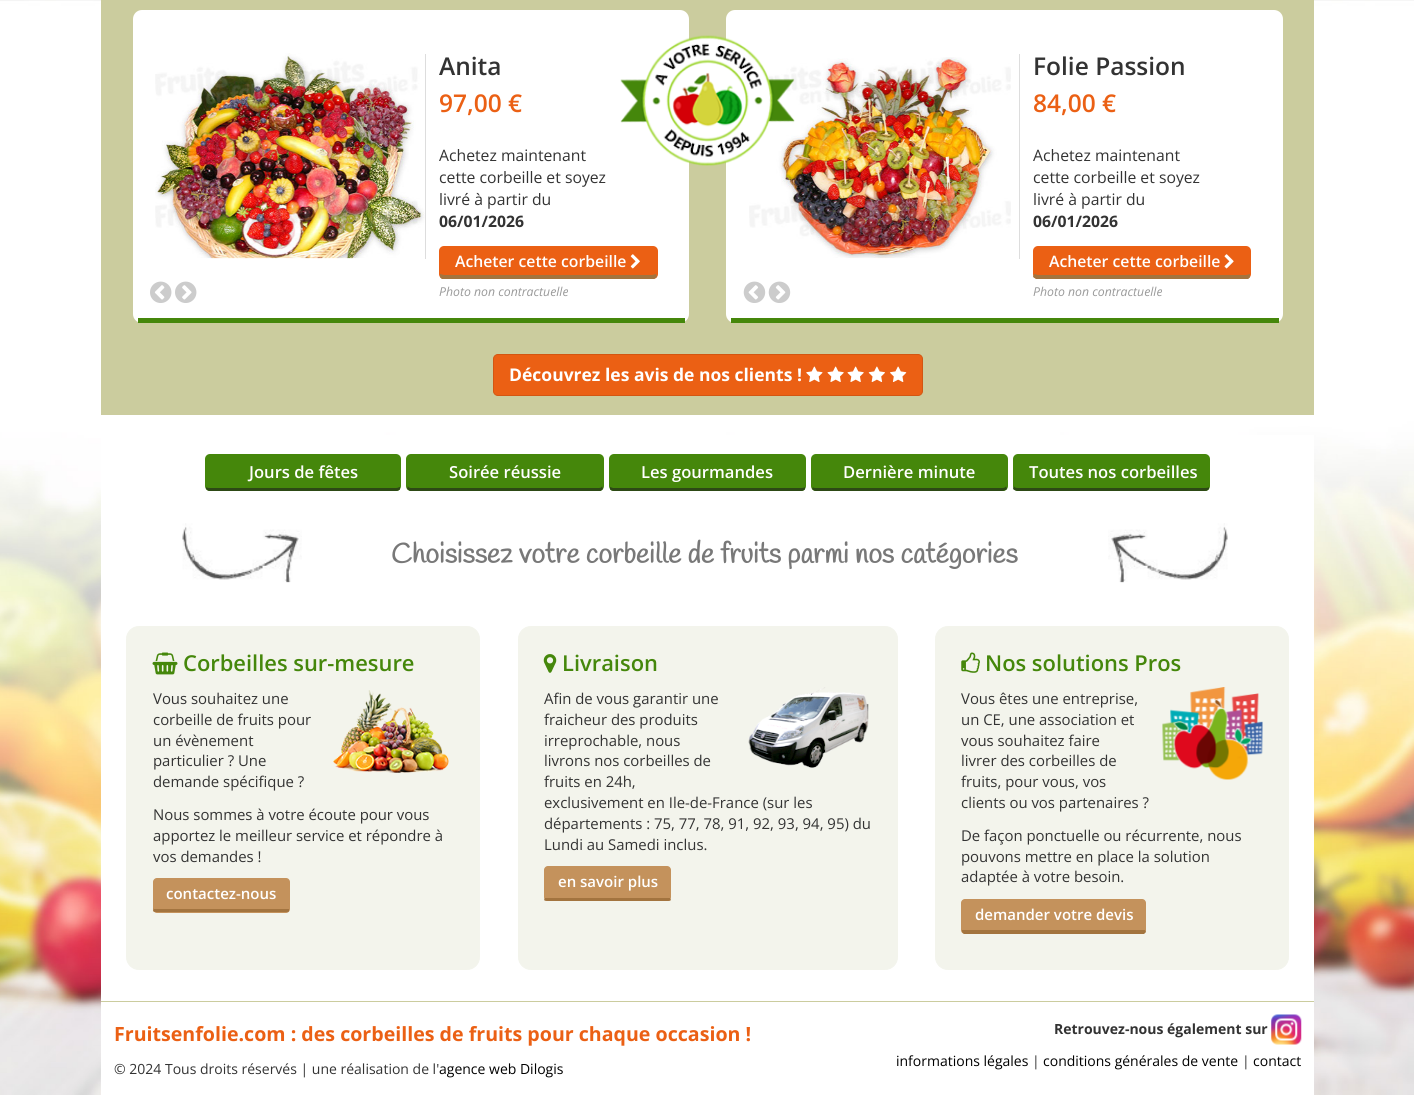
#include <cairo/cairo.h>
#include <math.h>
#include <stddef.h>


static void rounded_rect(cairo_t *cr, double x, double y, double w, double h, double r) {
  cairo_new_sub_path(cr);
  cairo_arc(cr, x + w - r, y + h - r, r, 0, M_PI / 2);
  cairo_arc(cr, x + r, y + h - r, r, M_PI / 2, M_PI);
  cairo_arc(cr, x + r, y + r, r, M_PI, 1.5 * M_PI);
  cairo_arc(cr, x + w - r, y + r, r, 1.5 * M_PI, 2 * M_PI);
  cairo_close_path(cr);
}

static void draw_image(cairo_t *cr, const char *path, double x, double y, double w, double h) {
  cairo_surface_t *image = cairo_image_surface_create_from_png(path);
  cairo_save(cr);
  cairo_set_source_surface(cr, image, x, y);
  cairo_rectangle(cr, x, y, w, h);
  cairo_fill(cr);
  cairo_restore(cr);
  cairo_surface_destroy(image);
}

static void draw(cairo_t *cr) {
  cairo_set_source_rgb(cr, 1, 1, 1);
  cairo_paint(cr);
  draw_image(cr, "images/1.png", 0, 0, 1414, 1095);
  cairo_set_source_rgb(cr, 203 / 255.0, 204 / 255.0, 158 / 255.0);
  cairo_rectangle(cr, 101, 0, 1213, 415);
  cairo_fill(cr);
  cairo_set_source_rgb(cr, 1, 1, 1);
  rounded_rect(cr, 133, 10, 556, 313, 9);
  cairo_fill(cr);
  rounded_rect(cr, 726, 10, 557, 313, 9);
  cairo_fill(cr);
  draw_image(cr, "images/9.png", 749, 57, 262, 202);
  draw_image(cr, "images/2.png", 620, 35, 175, 131);
  draw_image(cr, "images/3.png", 150, 281, 22, 22);
  draw_image(cr, "images/4.png", 175, 281, 22, 22);
  cairo_set_source_rgb(cr, 69 / 255.0, 135 / 255.0, 11 / 255.0);
  cairo_rectangle(cr, 138, 318, 547, 5);
  cairo_fill(cr);
  cairo_set_source_rgb(cr, 221 / 255.0, 221 / 255.0, 221 / 255.0);
  cairo_rectangle(cr, 425, 54, 1, 205);
  cairo_fill(cr);
  draw_image(cr, "images/5.png", 155, 53, 270, 206);
  cairo_set_source_rgb(cr, 235 / 255.0, 96 / 255.0, 20 / 255.0);
  rounded_rect(cr, 439, 246, 219, 33, 5);
  cairo_fill(cr);
  cairo_set_source_rgb(cr, 163 / 255.0, 116 / 255.0, 63 / 255.0);
  cairo_new_path(cr);
  cairo_move_to(cr, 442, 279);
  cairo_curve_to(cr, 441, 278, 440, 278, 440, 276);
  cairo_line_to(cr, 440, 274);
  cairo_line_to(cr, 444, 275);
  cairo_line_to(cr, 652, 275);
  cairo_line_to(cr, 656, 274);
  cairo_line_to(cr, 657, 277);
  cairo_line_to(cr, 654, 279);
  cairo_close_path(cr);
  cairo_fill(cr);
  draw_image(cr, "images/6.png", 630, 254, 10, 15);
  draw_image(cr, "images/7.png", 743, 281, 23, 22);
  draw_image(cr, "images/8.png", 768, 281, 23, 22);
  cairo_set_source_rgb(cr, 69 / 255.0, 135 / 255.0, 11 / 255.0);
  cairo_rectangle(cr, 731, 318, 548, 5);
  cairo_fill(cr);
  cairo_set_source_rgb(cr, 221 / 255.0, 221 / 255.0, 221 / 255.0);
  cairo_rectangle(cr, 1019, 54, 1, 205);
  cairo_fill(cr);
  cairo_set_source_rgb(cr, 235 / 255.0, 96 / 255.0, 20 / 255.0);
  rounded_rect(cr, 1033, 246, 218, 33, 5);
  cairo_fill(cr);
  cairo_set_source_rgb(cr, 163 / 255.0, 116 / 255.0, 63 / 255.0);
  cairo_new_path(cr);
  cairo_move_to(cr, 1036, 279);
  cairo_line_to(cr, 1033, 277);
  cairo_line_to(cr, 1034, 274);
  cairo_line_to(cr, 1038, 275);
  cairo_line_to(cr, 1246, 275);
  cairo_line_to(cr, 1250, 274);
  cairo_line_to(cr, 1250, 276);
  cairo_curve_to(cr, 1250, 278, 1249, 278, 1248, 279);
  cairo_close_path(cr);
  cairo_fill(cr);
  draw_image(cr, "images/10.png", 1224, 254, 10, 15);
  cairo_set_source_rgb(cr, 235 / 255.0, 96 / 255.0, 20 / 255.0);
  rounded_rect(cr, 493.5, 354.5, 429, 41, 4.5);
  cairo_fill_preserve(cr);
  cairo_set_source_rgb(cr, 211 / 255.0, 86 / 255.0, 18 / 255.0);
  cairo_set_line_width(cr, 1);
  cairo_stroke(cr);
  draw_image(cr, "images/11.png", 806, 366, 17, 16);
  draw_image(cr, "images/12.png", 827, 366, 17, 16);
  draw_image(cr, "images/12.png", 847, 366, 17, 16);
  draw_image(cr, "images/13.png", 868, 366, 17, 16);
  draw_image(cr, "images/14.png", 890, 366, 17, 16);
  cairo_set_source_rgb(cr, 1, 1, 1);
  cairo_rectangle(cr, 101, 435, 1213, 566);
  cairo_fill(cr);
  cairo_set_source_rgb(cr, 69 / 255.0, 135 / 255.0, 11 / 255.0);
  rounded_rect(cr, 205, 454, 196, 37, 5);
  cairo_fill(cr);
  cairo_set_source_rgb(cr, 45 / 255.0, 73 / 255.0, 21 / 255.0);
  cairo_new_path(cr);
  cairo_move_to(cr, 400, 489);
  cairo_curve_to(cr, 400, 490, 398, 491, 396, 491);
  cairo_line_to(cr, 210, 491);
  cairo_curve_to(cr, 208, 491, 207, 490, 206, 489);
  cairo_line_to(cr, 206, 487);
  cairo_curve_to(cr, 207, 488, 209, 488, 210, 488);
  cairo_line_to(cr, 396, 488);
  cairo_curve_to(cr, 398, 488, 399, 487, 400, 487);
  cairo_close_path(cr);
  cairo_fill(cr);
  cairo_set_source_rgb(cr, 69 / 255.0, 135 / 255.0, 11 / 255.0);
  rounded_rect(cr, 406, 454, 198, 37, 5);
  cairo_fill(cr);
  cairo_set_source_rgb(cr, 45 / 255.0, 73 / 255.0, 21 / 255.0);
  cairo_new_path(cr);
  cairo_move_to(cr, 603, 489);
  cairo_curve_to(cr, 602, 490, 601, 491, 600, 491);
  cairo_line_to(cr, 410, 491);
  cairo_line_to(cr, 407, 489);
  cairo_line_to(cr, 408, 486);
  cairo_curve_to(cr, 408, 487, 409, 488, 411, 488);
  cairo_line_to(cr, 599, 488);
  cairo_curve_to(cr, 601, 488, 602, 487, 602, 486);
  cairo_close_path(cr);
  cairo_fill(cr);
  cairo_set_source_rgb(cr, 69 / 255.0, 135 / 255.0, 11 / 255.0);
  rounded_rect(cr, 609, 454, 197, 37, 5);
  cairo_fill(cr);
  cairo_set_source_rgb(cr, 45 / 255.0, 73 / 255.0, 21 / 255.0);
  cairo_new_path(cr);
  cairo_move_to(cr, 805, 489);
  cairo_curve_to(cr, 805, 490, 803, 491, 801, 491);
  cairo_line_to(cr, 614, 491);
  cairo_curve_to(cr, 612, 491, 610, 490, 610, 489);
  cairo_line_to(cr, 610, 487);
  cairo_line_to(cr, 613, 488);
  cairo_line_to(cr, 801, 488);
  cairo_curve_to(cr, 802, 488, 804, 488, 805, 487);
  cairo_close_path(cr);
  cairo_fill(cr);
  cairo_set_source_rgb(cr, 69 / 255.0, 135 / 255.0, 11 / 255.0);
  rounded_rect(cr, 811, 454, 197, 37, 5);
  cairo_fill(cr);
  cairo_set_source_rgb(cr, 45 / 255.0, 73 / 255.0, 21 / 255.0);
  cairo_new_path(cr);
  cairo_move_to(cr, 1007, 489);
  cairo_curve_to(cr, 1006, 490, 1004, 491, 1002, 491);
  cairo_line_to(cr, 816, 491);
  cairo_curve_to(cr, 814, 491, 813, 490, 812, 489);
  cairo_line_to(cr, 813, 487);
  cairo_curve_to(cr, 813, 488, 815, 488, 816, 488);
  cairo_line_to(cr, 1002, 488);
  cairo_curve_to(cr, 1005, 488, 1006, 487, 1006, 486);
  cairo_close_path(cr);
  cairo_fill(cr);
  cairo_set_source_rgb(cr, 69 / 255.0, 135 / 255.0, 11 / 255.0);
  rounded_rect(cr, 1013, 454, 197, 37, 5);
  cairo_fill(cr);
  cairo_set_source_rgb(cr, 45 / 255.0, 73 / 255.0, 21 / 255.0);
  cairo_new_path(cr);
  cairo_move_to(cr, 1209, 489);
  cairo_curve_to(cr, 1208, 490, 1207, 491, 1205, 491);
  cairo_line_to(cr, 1018, 491);
  cairo_curve_to(cr, 1016, 491, 1014, 490, 1013, 489);
  cairo_line_to(cr, 1014, 486);
  cairo_curve_to(cr, 1014, 487, 1015, 488, 1018, 488);
  cairo_line_to(cr, 1205, 488);
  cairo_curve_to(cr, 1206, 488, 1208, 488, 1209, 487);
  cairo_close_path(cr);
  cairo_fill(cr);
  draw_image(cr, "images/15.png", 182, 523, 120, 60);
  draw_image(cr, "images/16.png", 1108, 523, 120, 60);
  cairo_set_source_rgb(cr, 243 / 255.0, 244 / 255.0, 236 / 255.0);
  rounded_rect(cr, 126.5, 626.5, 353, 343, 12.5);
  cairo_fill_preserve(cr);
  cairo_stroke(cr);
  draw_image(cr, "images/17.png", 152, 652, 26, 23);
  draw_image(cr, "images/18.png", 333, 690, 116, 83);
  cairo_set_source_rgb(cr, 196 / 255.0, 146 / 255.0, 92 / 255.0);
  rounded_rect(cr, 153, 878, 137, 35, 4);
  cairo_fill(cr);
  cairo_set_source_rgb(cr, 163 / 255.0, 116 / 255.0, 63 / 255.0);
  cairo_new_path(cr);
  cairo_move_to(cr, 289, 911);
  cairo_curve_to(cr, 289, 912, 287, 912, 286, 912);
  cairo_line_to(cr, 156, 912);
  cairo_curve_to(cr, 155, 912, 154, 912, 153, 911);
  cairo_line_to(cr, 154, 908);
  cairo_line_to(cr, 154, 909);
  cairo_line_to(cr, 289, 909);
  cairo_close_path(cr);
  cairo_fill(cr);
  cairo_set_source_rgb(cr, 243 / 255.0, 244 / 255.0, 236 / 255.0);
  rounded_rect(cr, 518.5, 626.5, 379, 343, 12.5);
  cairo_fill_preserve(cr);
  cairo_stroke(cr);
  draw_image(cr, "images/19.png", 543, 654, 14, 19);
  draw_image(cr, "images/20.png", 748, 687, 121, 81);
  cairo_set_source_rgb(cr, 196 / 255.0, 146 / 255.0, 92 / 255.0);
  rounded_rect(cr, 544, 866, 127, 35, 4);
  cairo_fill(cr);
  cairo_set_source_rgb(cr, 163 / 255.0, 116 / 255.0, 63 / 255.0);
  cairo_new_path(cr);
  cairo_move_to(cr, 671, 900);
  cairo_curve_to(cr, 670, 901, 669, 901, 668, 901);
  cairo_line_to(cr, 548, 901);
  cairo_curve_to(cr, 546, 901, 545, 901, 544, 900);
  cairo_line_to(cr, 545, 898);
  cairo_line_to(cr, 670, 898);
  cairo_close_path(cr);
  cairo_fill(cr);
  cairo_set_source_rgb(cr, 243 / 255.0, 244 / 255.0, 236 / 255.0);
  rounded_rect(cr, 935.5, 626.5, 353, 343, 12.5);
  cairo_fill_preserve(cr);
  cairo_stroke(cr);
  draw_image(cr, "images/21.png", 961, 652, 19, 21);
  draw_image(cr, "images/22.png", 1162, 687, 101, 93);
  cairo_set_source_rgb(cr, 196 / 255.0, 146 / 255.0, 92 / 255.0);
  rounded_rect(cr, 961, 899, 185, 35, 4);
  cairo_fill(cr);
  cairo_set_source_rgb(cr, 163 / 255.0, 116 / 255.0, 63 / 255.0);
  cairo_new_path(cr);
  cairo_move_to(cr, 964, 934);
  cairo_line_to(cr, 962, 932);
  cairo_line_to(cr, 962, 930);
  cairo_line_to(cr, 1145, 930);
  cairo_line_to(cr, 1146, 932);
  cairo_curve_to(cr, 1145, 933, 1145, 933, 1144, 934);
  cairo_close_path(cr);
  cairo_fill(cr);
  cairo_set_source_rgb(cr, 1, 1, 1);
  cairo_rectangle(cr, 101, 1002, 1213, 93);
  cairo_fill(cr);
  cairo_set_source_rgb(cr, 203 / 255.0, 204 / 255.0, 158 / 255.0);
  cairo_rectangle(cr, 101, 1001, 1213, 1);
  cairo_fill(cr);
  draw_image(cr, "images/23.png", 1271, 1014, 31, 31);
  cairo_select_font_face(cr, "Open Sans SemiBold", CAIRO_FONT_SLANT_NORMAL, CAIRO_FONT_WEIGHT_NORMAL);
  cairo_set_font_size(cr, 24.5);
  cairo_set_source_rgb(cr, 51 / 255.0, 51 / 255.0, 51 / 255.0);
  cairo_move_to(cr, 439, 75);
  cairo_show_text(cr, "Anita");
  cairo_set_source_rgb(cr, 235 / 255.0, 96 / 255.0, 20 / 255.0);
  cairo_move_to(cr, 439, 112);
  cairo_show_text(cr, "97,00 €");
  cairo_select_font_face(cr, "Open Sans", CAIRO_FONT_SLANT_NORMAL, CAIRO_FONT_WEIGHT_NORMAL);
  cairo_set_font_size(cr, 15.75);
  cairo_set_source_rgb(cr, 51 / 255.0, 51 / 255.0, 51 / 255.0);
  cairo_move_to(cr, 439, 161);
  cairo_show_text(cr, "Achetez maintenant");
  cairo_move_to(cr, 439, 183);
  cairo_show_text(cr, "cette corbeille et soyez");
  cairo_move_to(cr, 439, 205);
  cairo_show_text(cr, "livré à partir du");
  cairo_select_font_face(cr, "Open Sans", CAIRO_FONT_SLANT_NORMAL, CAIRO_FONT_WEIGHT_BOLD);
  cairo_move_to(cr, 439, 227);
  cairo_show_text(cr, "06/01/2026");
  cairo_select_font_face(cr, "Open Sans SemiBold", CAIRO_FONT_SLANT_NORMAL, CAIRO_FONT_WEIGHT_NORMAL);
  cairo_set_source_rgb(cr, 1, 1, 1);
  cairo_move_to(cr, 455, 267);
  cairo_show_text(cr, "Acheter cette corbeille");
  cairo_select_font_face(cr, "Open Sans", CAIRO_FONT_SLANT_ITALIC, CAIRO_FONT_WEIGHT_NORMAL);
  cairo_set_font_size(cr, 12.25);
  cairo_set_source_rgb(cr, 153 / 255.0, 153 / 255.0, 153 / 255.0);
  cairo_move_to(cr, 439, 296);
  cairo_show_text(cr, "Photo non contractuelle");
  cairo_select_font_face(cr, "Open Sans SemiBold", CAIRO_FONT_SLANT_NORMAL, CAIRO_FONT_WEIGHT_NORMAL);
  cairo_set_font_size(cr, 24.5);
  cairo_set_source_rgb(cr, 51 / 255.0, 51 / 255.0, 51 / 255.0);
  cairo_move_to(cr, 1033, 75);
  cairo_show_text(cr, "Folie Passion");
  cairo_set_source_rgb(cr, 235 / 255.0, 96 / 255.0, 20 / 255.0);
  cairo_move_to(cr, 1033, 112);
  cairo_show_text(cr, "84,00 €");
  cairo_select_font_face(cr, "Open Sans", CAIRO_FONT_SLANT_NORMAL, CAIRO_FONT_WEIGHT_NORMAL);
  cairo_set_font_size(cr, 15.75);
  cairo_set_source_rgb(cr, 51 / 255.0, 51 / 255.0, 51 / 255.0);
  cairo_move_to(cr, 1033, 161);
  cairo_show_text(cr, "Achetez maintenant");
  cairo_move_to(cr, 1033, 183);
  cairo_show_text(cr, "cette corbeille et soyez");
  cairo_move_to(cr, 1033, 205);
  cairo_show_text(cr, "livré à partir du");
  cairo_select_font_face(cr, "Open Sans", CAIRO_FONT_SLANT_NORMAL, CAIRO_FONT_WEIGHT_BOLD);
  cairo_move_to(cr, 1033, 227);
  cairo_show_text(cr, "06/01/2026");
  cairo_select_font_face(cr, "Open Sans SemiBold", CAIRO_FONT_SLANT_NORMAL, CAIRO_FONT_WEIGHT_NORMAL);
  cairo_set_source_rgb(cr, 1, 1, 1);
  cairo_move_to(cr, 1049, 267);
  cairo_show_text(cr, "Acheter cette corbeille");
  cairo_select_font_face(cr, "Open Sans", CAIRO_FONT_SLANT_ITALIC, CAIRO_FONT_WEIGHT_NORMAL);
  cairo_set_font_size(cr, 12.25);
  cairo_set_source_rgb(cr, 153 / 255.0, 153 / 255.0, 153 / 255.0);
  cairo_move_to(cr, 1033, 296);
  cairo_show_text(cr, "Photo non contractuelle");
  cairo_select_font_face(cr, "Open Sans", CAIRO_FONT_SLANT_NORMAL, CAIRO_FONT_WEIGHT_BOLD);
  cairo_set_font_size(cr, 17.5);
  cairo_set_source_rgb(cr, 1, 1, 1);
  cairo_move_to(cr, 509, 381);
  cairo_show_text(cr, "Découvrez les avis de nos clients !");
  cairo_select_font_face(cr, "Open Sans SemiBold", CAIRO_FONT_SLANT_NORMAL, CAIRO_FONT_WEIGHT_NORMAL);
  cairo_set_font_size(cr, 16.6);
  cairo_move_to(cr, 249, 478);
  cairo_show_text(cr, "Jours de fêtes");
  cairo_move_to(cr, 449, 478);
  cairo_show_text(cr, "Soirée réussie");
  cairo_move_to(cr, 641, 478);
  cairo_show_text(cr, "Les gourmandes");
  cairo_move_to(cr, 843, 478);
  cairo_show_text(cr, "Dernière minute");
  cairo_move_to(cr, 1029, 478);
  cairo_show_text(cr, "Toutes nos corbeilles");
  cairo_select_font_face(cr, "Handlee", CAIRO_FONT_SLANT_NORMAL, CAIRO_FONT_WEIGHT_BOLD);
  cairo_set_font_size(cr, 28);
  cairo_set_source_rgb(cr, 120 / 255.0, 120 / 255.0, 120 / 255.0);
  cairo_move_to(cr, 391, 563);
  cairo_show_text(cr, "Choisissez votre corbeille de fruits parmi nos catégories");
  cairo_select_font_face(cr, "Open Sans SemiBold", CAIRO_FONT_SLANT_NORMAL, CAIRO_FONT_WEIGHT_NORMAL);
  cairo_set_font_size(cr, 21.9);
  cairo_set_source_rgb(cr, 69 / 255.0, 135 / 255.0, 11 / 255.0);
  cairo_move_to(cr, 183, 671);
  cairo_show_text(cr, "Corbeilles sur-mesure");
  cairo_select_font_face(cr, "Open Sans", CAIRO_FONT_SLANT_NORMAL, CAIRO_FONT_WEIGHT_NORMAL);
  cairo_set_font_size(cr, 14.9);
  cairo_set_source_rgb(cr, 51 / 255.0, 51 / 255.0, 51 / 255.0);
  cairo_move_to(cr, 153, 704);
  cairo_show_text(cr, "Vous souhaitez une");
  cairo_move_to(cr, 153, 725);
  cairo_show_text(cr, "corbeille de fruits pour");
  cairo_move_to(cr, 153, 746);
  cairo_show_text(cr, "un évènement");
  cairo_move_to(cr, 153, 766);
  cairo_show_text(cr, "particulier ? Une");
  cairo_move_to(cr, 153, 787);
  cairo_show_text(cr, "demande spécifique ?");
  cairo_move_to(cr, 153, 820);
  cairo_show_text(cr, "Nous sommes à votre écoute pour vous");
  cairo_move_to(cr, 153, 841);
  cairo_show_text(cr, "apportez le meilleur service et répondre à");
  cairo_move_to(cr, 153, 862);
  cairo_show_text(cr, "vos demandes !");
  cairo_select_font_face(cr, "Open Sans SemiBold", CAIRO_FONT_SLANT_NORMAL, CAIRO_FONT_WEIGHT_NORMAL);
  cairo_set_font_size(cr, 15);
  cairo_set_source_rgb(cr, 1, 1, 1);
  cairo_move_to(cr, 166, 899);
  cairo_show_text(cr, "contactez-nous");
  cairo_set_font_size(cr, 21.9);
  cairo_set_source_rgb(cr, 69 / 255.0, 135 / 255.0, 11 / 255.0);
  cairo_move_to(cr, 562, 671);
  cairo_show_text(cr, "Livraison");
  cairo_select_font_face(cr, "Open Sans", CAIRO_FONT_SLANT_NORMAL, CAIRO_FONT_WEIGHT_NORMAL);
  cairo_set_font_size(cr, 14.9);
  cairo_set_source_rgb(cr, 51 / 255.0, 51 / 255.0, 51 / 255.0);
  cairo_move_to(cr, 544, 704);
  cairo_show_text(cr, "Afin de vous garantir une");
  cairo_move_to(cr, 544, 725);
  cairo_show_text(cr, "fraicheur des produits");
  cairo_move_to(cr, 544, 746);
  cairo_show_text(cr, "irreprochable, nous");
  cairo_move_to(cr, 544, 766);
  cairo_show_text(cr, "livrons nos corbeilles de");
  cairo_move_to(cr, 544, 787);
  cairo_show_text(cr, "fruits en 24h,");
  cairo_move_to(cr, 544, 808);
  cairo_show_text(cr, "exclusivement en Ile-de-France (sur les");
  cairo_move_to(cr, 544, 829);
  cairo_show_text(cr, "départements : 75, 77, 78, 91, 92, 93, 94, 95) du");
  cairo_move_to(cr, 544, 850);
  cairo_show_text(cr, "Lundi au Samedi inclus.");
  cairo_select_font_face(cr, "Open Sans SemiBold", CAIRO_FONT_SLANT_NORMAL, CAIRO_FONT_WEIGHT_NORMAL);
  cairo_set_font_size(cr, 15);
  cairo_set_source_rgb(cr, 1, 1, 1);
  cairo_move_to(cr, 558, 887);
  cairo_show_text(cr, "en savoir plus");
  cairo_set_font_size(cr, 21.9);
  cairo_set_source_rgb(cr, 69 / 255.0, 135 / 255.0, 11 / 255.0);
  cairo_move_to(cr, 985, 671);
  cairo_show_text(cr, "Nos solutions Pros");
  cairo_select_font_face(cr, "Open Sans", CAIRO_FONT_SLANT_NORMAL, CAIRO_FONT_WEIGHT_NORMAL);
  cairo_set_font_size(cr, 14.9);
  cairo_set_source_rgb(cr, 51 / 255.0, 51 / 255.0, 51 / 255.0);
  cairo_move_to(cr, 961, 704);
  cairo_show_text(cr, "Vous êtes une entreprise,");
  cairo_move_to(cr, 961, 725);
  cairo_show_text(cr, "un CE, une association et");
  cairo_move_to(cr, 961, 746);
  cairo_show_text(cr, "vous souhaitez faire");
  cairo_move_to(cr, 961, 766);
  cairo_show_text(cr, "livrer des corbeilles de");
  cairo_move_to(cr, 961, 787);
  cairo_show_text(cr, "fruits, pour vous, vos");
  cairo_move_to(cr, 961, 808);
  cairo_show_text(cr, "clients ou vos partenaires ?");
  cairo_move_to(cr, 961, 841);
  cairo_show_text(cr, "De façon ponctuelle ou récurrente, nous");
  cairo_move_to(cr, 961, 862);
  cairo_show_text(cr, "pouvons mettre en place la solution");
  cairo_move_to(cr, 961, 882);
  cairo_show_text(cr, "adaptée à votre besoin.");
  cairo_select_font_face(cr, "Open Sans SemiBold", CAIRO_FONT_SLANT_NORMAL, CAIRO_FONT_WEIGHT_NORMAL);
  cairo_set_font_size(cr, 15);
  cairo_set_source_rgb(cr, 1, 1, 1);
  cairo_move_to(cr, 975, 920);
  cairo_show_text(cr, "demander votre devis");
  cairo_select_font_face(cr, "Open Sans", CAIRO_FONT_SLANT_NORMAL, CAIRO_FONT_WEIGHT_BOLD);
  cairo_set_font_size(cr, 19.6);
  cairo_set_source_rgb(cr, 235 / 255.0, 96 / 255.0, 20 / 255.0);
  cairo_move_to(cr, 114, 1041);
  cairo_show_text(cr, "Fruitsenfolie.com : des corbeilles de fruits pour chaque occasion !");
  cairo_select_font_face(cr, "Open Sans", CAIRO_FONT_SLANT_NORMAL, CAIRO_FONT_WEIGHT_NORMAL);
  cairo_set_font_size(cr, 14);
  cairo_set_source_rgb(cr, 51 / 255.0, 51 / 255.0, 51 / 255.0);
  cairo_move_to(cr, 114, 1074);
  cairo_show_text(cr, "© 2024 Tous droits réservés | une réalisation de l'");
  cairo_set_source_rgb(cr, 0, 0, 0);
  cairo_move_to(cr, 439, 1074);
  cairo_show_text(cr, "agence web Dilogis");
  cairo_select_font_face(cr, "Open Sans", CAIRO_FONT_SLANT_NORMAL, CAIRO_FONT_WEIGHT_BOLD);
  cairo_set_source_rgb(cr, 51 / 255.0, 51 / 255.0, 51 / 255.0);
  cairo_move_to(cr, 1054, 1034);
  cairo_show_text(cr, "Retrouvez-nous également sur");
  cairo_select_font_face(cr, "Open Sans", CAIRO_FONT_SLANT_NORMAL, CAIRO_FONT_WEIGHT_NORMAL);
  cairo_set_source_rgb(cr, 0, 0, 0);
  cairo_move_to(cr, 896, 1066);
  cairo_show_text(cr, "informations légales");
  cairo_set_source_rgb(cr, 51 / 255.0, 51 / 255.0, 51 / 255.0);
  cairo_move_to(cr, 1032, 1066);
  cairo_show_text(cr, "|");
  cairo_set_source_rgb(cr, 0, 0, 0);
  cairo_move_to(cr, 1043, 1066);
  cairo_show_text(cr, "conditions générales de vente");
  cairo_set_source_rgb(cr, 51 / 255.0, 51 / 255.0, 51 / 255.0);
  cairo_move_to(cr, 1242, 1066);
  cairo_show_text(cr, "|");
  cairo_set_source_rgb(cr, 0, 0, 0);
  cairo_move_to(cr, 1253, 1066);
  cairo_show_text(cr, "contact");
}

int main(void) {
  cairo_surface_t *surface = cairo_image_surface_create(CAIRO_FORMAT_RGB24, 1414, 1095);
  cairo_t *cr = cairo_create(surface);
  cairo_font_options_t *options = cairo_font_options_create();
  cairo_font_options_set_hint_metrics(options, CAIRO_HINT_METRICS_OFF);
  cairo_font_options_set_hint_style(options, CAIRO_HINT_STYLE_NONE);
  cairo_set_font_options(cr, options);
  cairo_set_miter_limit(cr, 4);
  draw(cr);
  cairo_surface_write_to_png(surface, "out.png");
  cairo_font_options_destroy(options);
  cairo_destroy(cr);
  cairo_surface_destroy(surface);
  return 0;
}
